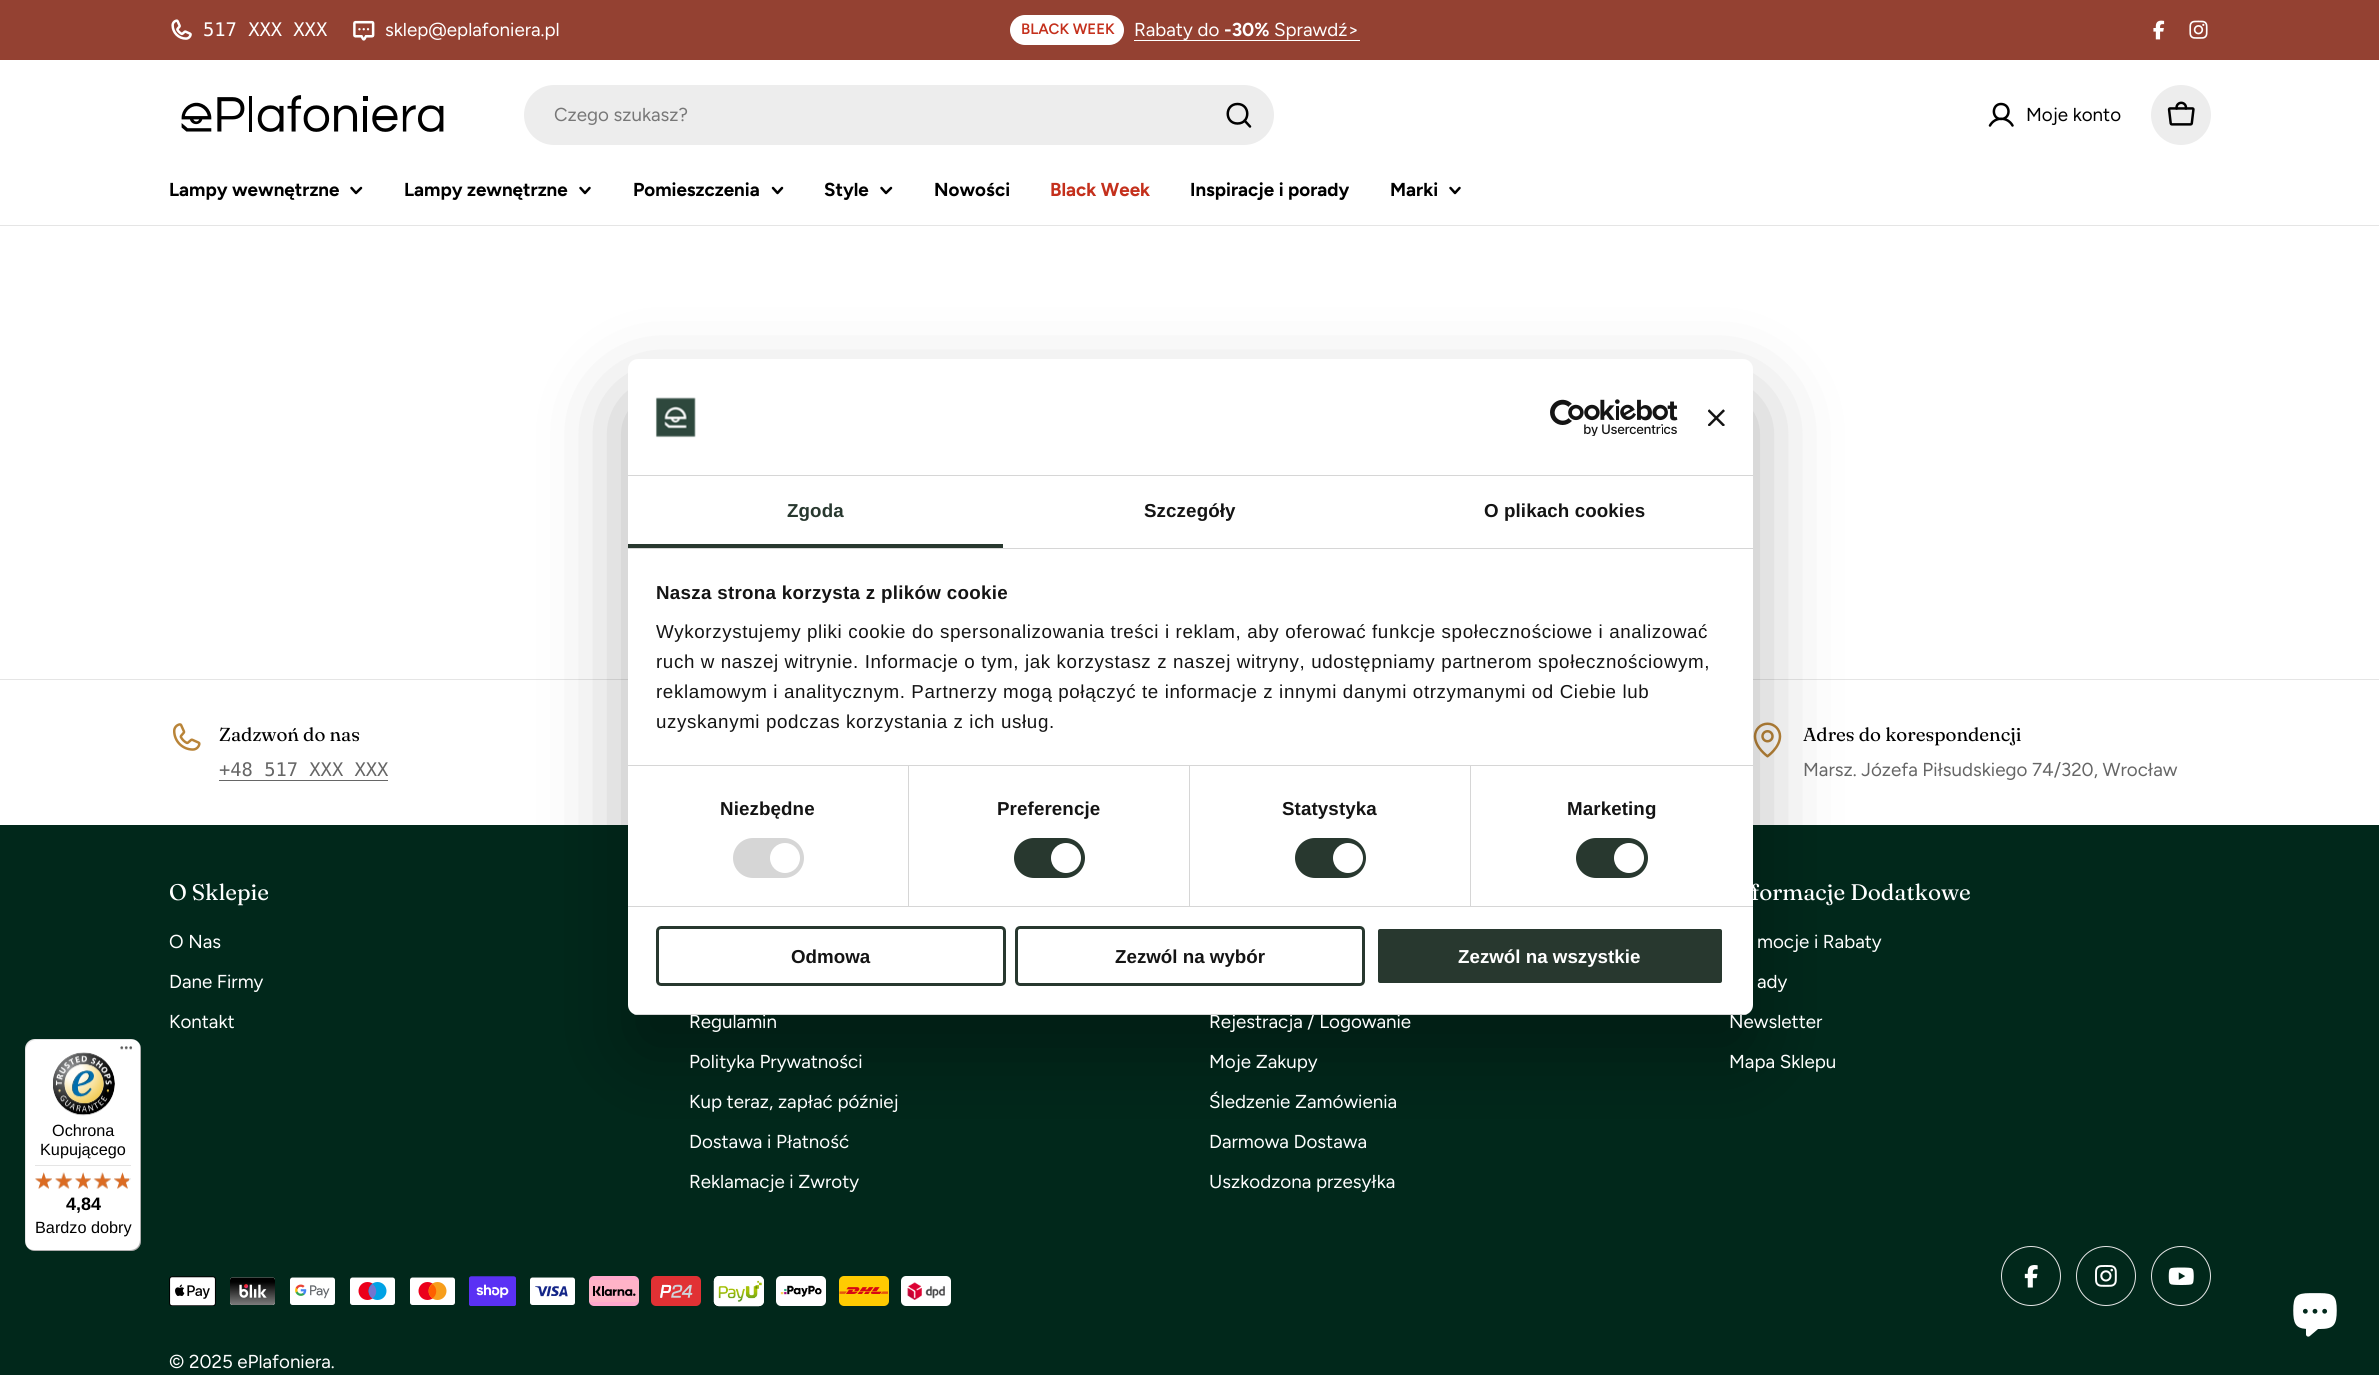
#include <cairo/cairo.h>
#include <math.h>
#include <stddef.h>


static void draw_spaced(cairo_t *cr, double x, double y, const char *s, double letter, double word) {
  cairo_move_to(cr, x, y);
  while (*s) {
    char ch[5] = {0};
    int n = 0;
    do ch[n++] = *s++; while ((*s & 0xC0) == 0x80);
    cairo_show_text(cr, ch);
    cairo_rel_move_to(cr, letter + word * (*ch == ' '), 0);
  }
}

static void rounded_rect(cairo_t *cr, double x, double y, double w, double h, double r) {
  cairo_new_sub_path(cr);
  cairo_arc(cr, x + w - r, y + h - r, r, 0, M_PI / 2);
  cairo_arc(cr, x + r, y + h - r, r, M_PI / 2, M_PI);
  cairo_arc(cr, x + r, y + r, r, M_PI, 1.5 * M_PI);
  cairo_arc(cr, x + w - r, y + r, r, 1.5 * M_PI, 2 * M_PI);
  cairo_close_path(cr);
}

static void draw_shadow(cairo_t *cr, double x, double y, double w, double h, double r, double blur, double alpha) {
  cairo_push_group_with_content(cr, CAIRO_CONTENT_ALPHA);
  cairo_set_operator(cr, CAIRO_OPERATOR_SOURCE);
  for (int i = 15; i >= -15 && fmin(w, h) + blur * i / 3 > 0; i -= 2) {
    double e = blur * i / 6;
    cairo_set_source_rgba(cr, 0, 0, 0, alpha * erfc((i - 1) / 8.5) / 2);
    rounded_rect(cr, x - e, y - e, w + 2 * e, h + 2 * e, fmax(0, fmin(r + e + blur * .6, fmin(w, h) / 2 + e)));
    cairo_fill(cr);
  }
  cairo_pattern_t *soft = cairo_pop_group(cr);
  cairo_mask(cr, soft);
  cairo_pattern_destroy(soft);
}

static void draw_image(cairo_t *cr, const char *path, double x, double y, double w, double h) {
  cairo_surface_t *image = cairo_image_surface_create_from_png(path);
  cairo_save(cr);
  cairo_set_source_surface(cr, image, x, y);
  cairo_rectangle(cr, x, y, w, h);
  cairo_fill(cr);
  cairo_restore(cr);
  cairo_surface_destroy(image);
}

static void draw(cairo_t *cr) {
  cairo_set_source_rgb(cr, 1, 1, 1);
  cairo_paint(cr);
  cairo_set_source_rgb(cr, 148 / 255.0, 65 / 255.0, 50 / 255.0);
  cairo_rectangle(cr, 0, 0, 2379, 60);
  cairo_fill(cr);
  draw_image(cr, "images/1.png", 171, 19, 21, 21);
  draw_image(cr, "images/2.png", 353, 20, 22, 21);
  cairo_set_source_rgb(cr, 1, 1, 1);
  rounded_rect(cr, 1010, 15, 114, 30, 15);
  cairo_fill(cr);
  cairo_rectangle(cr, 1134, 40, 226, 1);
  cairo_fill(cr);
  draw_image(cr, "images/3.png", 2153, 20, 12, 20);
  draw_image(cr, "images/4.png", 2189, 20, 19, 19);
  draw_image(cr, "images/5.png", 181, 95, 263, 37);
  cairo_set_source_rgb(cr, 237 / 255.0, 237 / 255.0, 237 / 255.0);
  rounded_rect(cr, 524, 85, 750, 60, 30);
  cairo_fill(cr);
  cairo_new_path(cr);
  cairo_move_to(cr, 1237.5, 123.5);
  cairo_curve_to(cr, 1250.5, 123.5, 1250.5, 104, 1237.5, 104);
  cairo_curve_to(cr, 1224.5, 104, 1224.5, 123.5, 1237.5, 123.5);
  cairo_close_path(cr);
  cairo_move_to(cr, 1244.5, 120.5);
  cairo_line_to(cr, 1250, 126.5);
  cairo_set_source_rgb(cr, 0, 0, 0);
  cairo_set_line_width(cr, 2.5);
  cairo_set_line_cap(cr, CAIRO_LINE_CAP_ROUND);
  cairo_set_line_join(cr, CAIRO_LINE_JOIN_ROUND);
  cairo_stroke(cr);
  cairo_new_path(cr);
  cairo_move_to(cr, 2001, 119);
  cairo_curve_to(cr, 2011, 119, 2011, 104, 2001, 104);
  cairo_curve_to(cr, 1991.5, 104, 1991.5, 119, 2001, 119);
  cairo_close_path(cr);
  cairo_move_to(cr, 1990, 125.5);
  cairo_curve_to(cr, 1995, 116.5, 2007.5, 116.5, 2012.5, 125.5);
  cairo_stroke(cr);
  cairo_set_source_rgb(cr, 237 / 255.0, 237 / 255.0, 237 / 255.0);
  cairo_arc(cr, 2181, 115, 30, 0, 2 * M_PI);
  cairo_fill(cr);
  draw_image(cr, "images/6.png", 2167, 101, 28, 25);
  cairo_set_source_rgb(cr, 229 / 255.0, 229 / 255.0, 229 / 255.0);
  cairo_rectangle(cr, 0, 225, 2379, 1);
  cairo_fill(cr);
  cairo_new_path(cr);
  cairo_move_to(cr, 361, 188);
  cairo_line_to(cr, 356, 193);
  cairo_line_to(cr, 351.5, 188);
  cairo_set_source_rgb(cr, 0, 0, 0);
  cairo_stroke(cr);
  cairo_new_path(cr);
  cairo_move_to(cr, 589.5, 188);
  cairo_line_to(cr, 585, 193);
  cairo_line_to(cr, 580.5, 188);
  cairo_stroke(cr);
  cairo_new_path(cr);
  cairo_move_to(cr, 782, 188);
  cairo_line_to(cr, 777.5, 193);
  cairo_line_to(cr, 773, 188);
  cairo_stroke(cr);
  cairo_new_path(cr);
  cairo_move_to(cr, 891, 188);
  cairo_line_to(cr, 886, 193);
  cairo_line_to(cr, 881.5, 188);
  cairo_stroke(cr);
  cairo_new_path(cr);
  cairo_move_to(cr, 1459.5, 188);
  cairo_line_to(cr, 1455, 193);
  cairo_line_to(cr, 1450.5, 188);
  cairo_stroke(cr);
  cairo_set_source_rgb(cr, 229 / 255.0, 229 / 255.0, 229 / 255.0);
  cairo_rectangle(cr, 0, 679, 2379, 1);
  cairo_fill(cr);
  draw_image(cr, "images/7.png", 173, 723, 28, 28);
  cairo_set_source_rgb(cr, 102 / 255.0, 102 / 255.0, 102 / 255.0);
  cairo_rectangle(cr, 219, 780, 169, 1);
  cairo_fill(cr);
  draw_image(cr, "images/8.png", 1753, 722, 29, 36);
  cairo_set_source_rgb(cr, 1 / 255.0, 40 / 255.0, 27 / 255.0);
  cairo_rectangle(cr, 0, 825, 2379, 550);
  cairo_fill(cr);
  draw_image(cr, "images/9.png", 169, 1276, 47, 30);
  draw_image(cr, "images/10.png", 230, 1277, 45, 28);
  draw_image(cr, "images/11.png", 290, 1277, 45, 28);
  draw_image(cr, "images/12.png", 350, 1277, 45, 28);
  draw_image(cr, "images/13.png", 410, 1277, 45, 28);
  draw_image(cr, "images/14.png", 469, 1276, 47, 30);
  draw_image(cr, "images/15.png", 530, 1277, 45, 28);
  cairo_set_source_rgb(cr, 1, 168 / 255.0, 205 / 255.0);
  rounded_rect(cr, 589, 1276, 50, 30, 5);
  cairo_fill(cr);
  draw_image(cr, "images/16.png", 589, 1280, 50, 22);
  draw_image(cr, "images/17.png", 651, 1276, 50, 30);
  cairo_set_source_rgb(cr, 1, 1, 1);
  rounded_rect(cr, 714, 1276, 50, 30, 5);
  cairo_fill(cr);
  draw_image(cr, "images/18.png", 713, 1276, 51, 31);
  rounded_rect(cr, 776, 1276, 50, 30, 5);
  cairo_fill(cr);
  draw_image(cr, "images/19.png", 780, 1285, 42, 12);
  draw_image(cr, "images/20.png", 839, 1276, 50, 30);
  rounded_rect(cr, 901, 1276, 50, 30, 5);
  cairo_fill(cr);
  draw_image(cr, "images/21.png", 907, 1282, 38, 18);
  cairo_arc(cr, 2031, 1276, 29.5, 0, 2 * M_PI);
  cairo_set_source_rgb(cr, 229 / 255.0, 229 / 255.0, 229 / 255.0);
  cairo_set_line_width(cr, 1);
  cairo_set_line_cap(cr, CAIRO_LINE_CAP_BUTT);
  cairo_set_line_join(cr, CAIRO_LINE_JOIN_MITER);
  cairo_stroke(cr);
  draw_image(cr, "images/22.png", 2024, 1265, 14, 23);
  cairo_arc(cr, 2106, 1276, 29.5, 0, 2 * M_PI);
  cairo_stroke(cr);
  draw_image(cr, "images/23.png", 2095, 1265, 22, 22);
  cairo_arc(cr, 2181, 1276, 29.5, 0, 2 * M_PI);
  cairo_stroke(cr);
  draw_image(cr, "images/24.png", 2168, 1267, 26, 18);
  cairo_set_source_rgb(cr, 0, 0, 0);
  draw_shadow(cr, 628, 399, 1125, 656, 10, 42.5, 0.3);
  cairo_set_source_rgb(cr, 1, 1, 1);
  rounded_rect(cr, 628, 359, 1125, 656, 10);
  cairo_fill(cr);
  cairo_set_source_rgb(cr, 214 / 255.0, 214 / 255.0, 214 / 255.0);
  cairo_rectangle(cr, 628, 475, 1125, 1);
  cairo_fill(cr);
  draw_image(cr, "images/25.png", 655, 397, 41, 41);
  draw_image(cr, "images/26.png", 1550, 399, 128, 37);
  draw_image(cr, "images/27.png", 1708, 409, 17, 17);
  cairo_rectangle(cr, 628, 548, 1125, 1);
  cairo_fill(cr);
  cairo_set_source_rgb(cr, 40 / 255.0, 56 / 255.0, 47 / 255.0);
  cairo_rectangle(cr, 628, 544, 375, 4);
  cairo_fill(cr);
  cairo_set_source_rgb(cr, 214 / 255.0, 214 / 255.0, 214 / 255.0);
  cairo_rectangle(cr, 628, 765, 1125, 1);
  cairo_fill(cr);
  cairo_rectangle(cr, 628, 906, 1125, 1);
  cairo_fill(cr);
  cairo_rectangle(cr, 908, 766, 1, 140);
  cairo_fill(cr);
  rounded_rect(cr, 733, 838, 71, 40, 20);
  cairo_fill(cr);
  cairo_set_source_rgb(cr, 1, 1, 1);
  cairo_arc(cr, 785, 858, 15, 0, 2 * M_PI);
  cairo_fill(cr);
  cairo_set_source_rgb(cr, 214 / 255.0, 214 / 255.0, 214 / 255.0);
  cairo_rectangle(cr, 1189, 766, 1, 140);
  cairo_fill(cr);
  cairo_set_source_rgb(cr, 40 / 255.0, 56 / 255.0, 47 / 255.0);
  rounded_rect(cr, 1014, 838, 71, 40, 20);
  cairo_fill(cr);
  cairo_set_source_rgb(cr, 1, 1, 1);
  cairo_arc(cr, 1066, 858, 15, 0, 2 * M_PI);
  cairo_fill(cr);
  cairo_set_source_rgb(cr, 214 / 255.0, 214 / 255.0, 214 / 255.0);
  cairo_rectangle(cr, 1470, 766, 1, 140);
  cairo_fill(cr);
  cairo_set_source_rgb(cr, 40 / 255.0, 56 / 255.0, 47 / 255.0);
  rounded_rect(cr, 1295, 838, 71, 40, 20);
  cairo_fill(cr);
  cairo_set_source_rgb(cr, 1, 1, 1);
  cairo_arc(cr, 1348, 858, 15, 0, 2 * M_PI);
  cairo_fill(cr);
  cairo_set_source_rgb(cr, 40 / 255.0, 56 / 255.0, 47 / 255.0);
  rounded_rect(cr, 1576, 838, 72, 40, 20);
  cairo_fill(cr);
  cairo_set_source_rgb(cr, 1, 1, 1);
  cairo_arc(cr, 1629, 858, 15, 0, 2 * M_PI);
  cairo_fill(cr);
  rounded_rect(cr, 657.5, 927.5, 347, 57, 3.5);
  cairo_set_source_rgb(cr, 40 / 255.0, 56 / 255.0, 47 / 255.0);
  cairo_set_line_width(cr, 3);
  cairo_stroke(cr);
  rounded_rect(cr, 1016.5, 927.5, 347, 57, 3.5);
  cairo_stroke(cr);
  rounded_rect(cr, 1376.5, 927.5, 347, 57, 3.5);
  cairo_fill_preserve(cr);
  cairo_set_source_rgb(cr, 1, 1, 1);
  cairo_stroke(cr);
  rounded_rect(cr, 25, 1039, 116, 212, 10);
  cairo_fill(cr);
  cairo_set_source_rgba(cr, 0, 0, 0, 0.1);
  cairo_new_path(cr);
  cairo_move_to(cr, 36, 1040);
  cairo_line_to(cr, 132, 1040);
  cairo_curve_to(cr, 134, 1040, 136, 1040, 137, 1041);
  cairo_curve_to(cr, 136, 1040, 133, 1039, 131, 1039);
  cairo_line_to(cr, 35, 1039);
  cairo_curve_to(cr, 29, 1039, 25, 1043, 25, 1049);
  cairo_line_to(cr, 25, 1241);
  cairo_curve_to(cr, 25, 1244, 26, 1247, 28, 1249);
  cairo_curve_to(cr, 27, 1247, 26, 1245, 26, 1242);
  cairo_line_to(cr, 26, 1050);
  cairo_curve_to(cr, 26, 1044, 31, 1040, 36, 1040);
  cairo_close_path(cr);
  cairo_fill(cr);
  cairo_set_source_rgba(cr, 0, 0, 0, 0.2);
  cairo_new_path(cr);
  cairo_move_to(cr, 29, 1249);
  cairo_curve_to(cr, 30, 1250, 33, 1251, 35, 1251);
  cairo_line_to(cr, 131, 1251);
  cairo_curve_to(cr, 137, 1251, 141, 1247, 141, 1241);
  cairo_line_to(cr, 141, 1049);
  cairo_curve_to(cr, 141, 1047, 140, 1044, 139, 1043);
  cairo_curve_to(cr, 140, 1044, 140, 1046, 140, 1048);
  cairo_line_to(cr, 140, 1240);
  cairo_curve_to(cr, 140, 1246, 136, 1250, 130, 1250);
  cairo_line_to(cr, 34, 1250);
  cairo_curve_to(cr, 32, 1250, 30, 1250, 29, 1249);
  cairo_close_path(cr);
  cairo_fill(cr);
  cairo_set_source_rgba(cr, 50 / 255.0, 50 / 255.0, 50 / 255.0, 0.2);
  cairo_new_path(cr);
  cairo_move_to(cr, 27, 1247);
  cairo_curve_to(cr, 29, 1250, 32, 1251, 35, 1251);
  cairo_line_to(cr, 131, 1251);
  cairo_curve_to(cr, 137, 1251, 141, 1247, 141, 1241);
  cairo_line_to(cr, 141, 1049);
  cairo_curve_to(cr, 141, 1047, 140, 1044, 139, 1043);
  cairo_curve_to(cr, 140, 1044, 140, 1046, 140, 1048);
  cairo_line_to(cr, 140, 1240);
  cairo_curve_to(cr, 140, 1246, 136, 1250, 130, 1250);
  cairo_line_to(cr, 34, 1250);
  cairo_curve_to(cr, 32, 1250, 29, 1249, 27, 1247);
  cairo_close_path(cr);
  cairo_fill(cr);
  draw_image(cr, "images/28.png", 120, 1046, 13, 4);
  cairo_set_source_rgba(cr, 1, 1, 1, 0.3);
  cairo_new_path(cr);
  cairo_move_to(cr, 131, 1251);
  cairo_curve_to(cr, 136.5, 1251, 141, 1246.5, 141, 1241);
  cairo_curve_to(cr, 141, 1246, 136, 1251, 131, 1251);
  cairo_close_path(cr);
  cairo_fill(cr);
  draw_image(cr, "images/29.png", 53, 1052, 62, 64);
  cairo_set_source_rgb(cr, 229 / 255.0, 229 / 255.0, 229 / 255.0);
  cairo_rectangle(cr, 35, 1165, 96, 1);
  cairo_fill(cr);
  draw_image(cr, "images/30.png", 35, 1173, 17, 16);
  draw_image(cr, "images/31.png", 55, 1172, 17, 17);
  draw_image(cr, "images/32.png", 75, 1173, 16, 16);
  draw_image(cr, "images/33.png", 94, 1172, 17, 17);
  draw_image(cr, "images/34.png", 114, 1173, 17, 16);
  draw_image(cr, "images/35.png", 35, 1172, 17, 17);
  draw_image(cr, "images/36.png", 55, 1172, 18, 17);
  draw_image(cr, "images/37.png", 75, 1172, 16, 17);
  draw_image(cr, "images/38.png", 93, 1172, 18, 17);
  draw_image(cr, "images/39.png", 114, 1172, 15, 17);
  draw_image(cr, "images/40.png", 2293, 1293, 44, 44);
  cairo_select_font_face(cr, "DejaVu Sans Mono", CAIRO_FONT_SLANT_NORMAL, CAIRO_FONT_WEIGHT_NORMAL);
  cairo_set_font_size(cr, 18.75);
  cairo_set_source_rgb(cr, 1, 1, 1);
  cairo_move_to(cr, 203, 36);
  cairo_show_text(cr, "517 XXX XXX");
  cairo_select_font_face(cr, "Figtree", CAIRO_FONT_SLANT_NORMAL, CAIRO_FONT_WEIGHT_NORMAL);
  cairo_move_to(cr, 385, 36);
  cairo_show_text(cr, "sklep@eplafoniera.pl");
  cairo_select_font_face(cr, "Figtree SemiBold", CAIRO_FONT_SLANT_NORMAL, CAIRO_FONT_WEIGHT_NORMAL);
  cairo_set_font_size(cr, 15);
  cairo_set_source_rgb(cr, 196 / 255.0, 48 / 255.0, 28 / 255.0);
  cairo_move_to(cr, 1021, 34);
  cairo_show_text(cr, "BLACK WEEK");
  cairo_select_font_face(cr, "Figtree", CAIRO_FONT_SLANT_NORMAL, CAIRO_FONT_WEIGHT_NORMAL);
  cairo_set_font_size(cr, 18.75);
  cairo_set_source_rgb(cr, 1, 1, 1);
  cairo_move_to(cr, 1134, 36);
  cairo_show_text(cr, "Rabaty do");
  cairo_select_font_face(cr, "Figtree", CAIRO_FONT_SLANT_NORMAL, CAIRO_FONT_WEIGHT_BOLD);
  cairo_move_to(cr, 1224, 36);
  cairo_show_text(cr, "-30%");
  cairo_select_font_face(cr, "Figtree", CAIRO_FONT_SLANT_NORMAL, CAIRO_FONT_WEIGHT_NORMAL);
  cairo_move_to(cr, 1274, 36);
  cairo_show_text(cr, "Sprawdź>");
  cairo_set_source_rgb(cr, 119 / 255.0, 119 / 255.0, 119 / 255.0);
  cairo_move_to(cr, 554, 121);
  cairo_show_text(cr, "Czego szukasz?");
  cairo_set_source_rgb(cr, 0, 0, 0);
  cairo_move_to(cr, 2026, 121);
  cairo_show_text(cr, "Moje konto");
  cairo_select_font_face(cr, "Figtree", CAIRO_FONT_SLANT_NORMAL, CAIRO_FONT_WEIGHT_BOLD);
  cairo_move_to(cr, 169, 196);
  cairo_show_text(cr, "Lampy wewnętrzne");
  cairo_move_to(cr, 404, 196);
  cairo_show_text(cr, "Lampy zewnętrzne");
  cairo_move_to(cr, 633, 196);
  cairo_show_text(cr, "Pomieszczenia");
  cairo_move_to(cr, 824, 196);
  cairo_show_text(cr, "Style");
  cairo_move_to(cr, 934, 196);
  cairo_show_text(cr, "Nowości");
  cairo_set_source_rgb(cr, 196 / 255.0, 48 / 255.0, 28 / 255.0);
  cairo_move_to(cr, 1050, 196);
  cairo_show_text(cr, "Black Week");
  cairo_set_source_rgb(cr, 0, 0, 0);
  cairo_move_to(cr, 1190, 196);
  cairo_show_text(cr, "Inspiracje i porady");
  cairo_move_to(cr, 1390, 196);
  cairo_show_text(cr, "Marki");
  cairo_select_font_face(cr, "Fraunces", CAIRO_FONT_SLANT_NORMAL, CAIRO_FONT_WEIGHT_NORMAL);
  cairo_move_to(cr, 219, 741);
  cairo_show_text(cr, "Zadzwoń do nas");
  cairo_select_font_face(cr, "DejaVu Sans Mono", CAIRO_FONT_SLANT_NORMAL, CAIRO_FONT_WEIGHT_NORMAL);
  cairo_set_source_rgb(cr, 102 / 255.0, 102 / 255.0, 102 / 255.0);
  cairo_move_to(cr, 219, 776);
  cairo_show_text(cr, "+48 517 XXX XXX");
  cairo_select_font_face(cr, "Fraunces", CAIRO_FONT_SLANT_NORMAL, CAIRO_FONT_WEIGHT_NORMAL);
  cairo_set_source_rgb(cr, 0, 0, 0);
  cairo_move_to(cr, 1803, 741);
  cairo_show_text(cr, "Adres do korespondencji");
  cairo_select_font_face(cr, "Figtree", CAIRO_FONT_SLANT_NORMAL, CAIRO_FONT_WEIGHT_NORMAL);
  cairo_set_source_rgb(cr, 102 / 255.0, 102 / 255.0, 102 / 255.0);
  cairo_move_to(cr, 1803, 776);
  cairo_show_text(cr, "Marsz. Józefa Piłsudskiego 74/320, Wrocław");
  cairo_select_font_face(cr, "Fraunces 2", CAIRO_FONT_SLANT_NORMAL, CAIRO_FONT_WEIGHT_NORMAL);
  cairo_set_font_size(cr, 22.5);
  cairo_set_source_rgb(cr, 1, 1, 1);
  cairo_move_to(cr, 169, 900);
  cairo_show_text(cr, "O Sklepie");
  cairo_select_font_face(cr, "Figtree", CAIRO_FONT_SLANT_NORMAL, CAIRO_FONT_WEIGHT_NORMAL);
  cairo_set_font_size(cr, 18.75);
  cairo_move_to(cr, 169, 948);
  cairo_show_text(cr, "O Nas");
  cairo_move_to(cr, 169, 988);
  cairo_show_text(cr, "Dane Firmy");
  cairo_move_to(cr, 169, 1028);
  cairo_show_text(cr, "Kontakt");
  cairo_select_font_face(cr, "Fraunces 2", CAIRO_FONT_SLANT_NORMAL, CAIRO_FONT_WEIGHT_NORMAL);
  cairo_set_font_size(cr, 22.5);
  cairo_move_to(cr, 1751, 900);
  cairo_show_text(cr, "formacje Dodatkowe");
  cairo_select_font_face(cr, "Figtree", CAIRO_FONT_SLANT_NORMAL, CAIRO_FONT_WEIGHT_NORMAL);
  cairo_set_font_size(cr, 18.75);
  cairo_move_to(cr, 1757, 948);
  cairo_show_text(cr, "mocje i Rabaty");
  cairo_move_to(cr, 1757, 988);
  cairo_show_text(cr, "ady");
  cairo_move_to(cr, 1729, 1028);
  cairo_show_text(cr, "Newsletter");
  cairo_move_to(cr, 1729, 1068);
  cairo_show_text(cr, "Mapa Sklepu");
  cairo_move_to(cr, 689, 1028);
  cairo_show_text(cr, "Regulamin");
  cairo_move_to(cr, 689, 1068);
  cairo_show_text(cr, "Polityka Prywatności");
  cairo_move_to(cr, 689, 1108);
  cairo_show_text(cr, "Kup teraz, zapłać później");
  cairo_move_to(cr, 689, 1148);
  cairo_show_text(cr, "Dostawa i Płatność");
  cairo_move_to(cr, 689, 1188);
  cairo_show_text(cr, "Reklamacje i Zwroty");
  cairo_move_to(cr, 1209, 1028);
  cairo_show_text(cr, "Rejestracja / Logowanie");
  cairo_move_to(cr, 1209, 1068);
  cairo_show_text(cr, "Moje Zakupy");
  cairo_move_to(cr, 1209, 1108);
  cairo_show_text(cr, "Śledzenie Zamówienia");
  cairo_move_to(cr, 1209, 1148);
  cairo_show_text(cr, "Darmowa Dostawa");
  cairo_move_to(cr, 1209, 1188);
  cairo_show_text(cr, "Uszkodzona przesyłka");
  cairo_move_to(cr, 169, 1368);
  cairo_show_text(cr, "© 2025 ePlafoniera.");
  cairo_select_font_face(cr, "Liberation Sans", CAIRO_FONT_SLANT_NORMAL, CAIRO_FONT_WEIGHT_BOLD);
  cairo_set_source_rgb(cr, 40 / 255.0, 56 / 255.0, 47 / 255.0);
  draw_spaced(cr, 787, 517, "Zgoda", 0.1, 0);
  cairo_set_source_rgb(cr, 20 / 255.0, 20 / 255.0, 20 / 255.0);
  draw_spaced(cr, 1144, 517, "Szczegóły", 0.1, 0);
  draw_spaced(cr, 1484, 517, "O plikach cookies", 0.1, 0);
  draw_spaced(cr, 656, 599, "Nasza strona korzysta z plików cookie", 0.3, 0);
  cairo_select_font_face(cr, "Liberation Sans", CAIRO_FONT_SLANT_NORMAL, CAIRO_FONT_WEIGHT_NORMAL);
  draw_spaced(cr, 656, 638, "Wykorzystujemy pliki cookie do spersonalizowania treści i reklam, aby oferować funkcje społecznościowe i analizować", 0.62, 0);
  draw_spaced(cr, 656, 668, "ruch w naszej witrynie. Informacje o tym, jak korzystasz z naszej witryny, udostępniamy partnerom społecznościowym,", 0.62, 0);
  draw_spaced(cr, 656, 698, "reklamowym i analitycznym. Partnerzy mogą połączyć te informacje z innymi danymi otrzymanymi od Ciebie lub", 0.62, 0);
  draw_spaced(cr, 656, 728, "uzyskanymi podczas korzystania z ich usług.", 0.62, 0);
  cairo_select_font_face(cr, "Liberation Sans", CAIRO_FONT_SLANT_NORMAL, CAIRO_FONT_WEIGHT_BOLD);
  draw_spaced(cr, 720, 815, "Niezbędne", 0.1, 0);
  draw_spaced(cr, 997, 815, "Preferencje", 0.1, 0);
  draw_spaced(cr, 1282, 815, "Statystyka", 0.1, 0);
  draw_spaced(cr, 1567, 815, "Marketing", 0.1, 0);
  cairo_save(cr);
  rounded_rect(cr, 628, 359, 1125, 656, 10);
  cairo_clip(cr);
  cairo_set_source_rgb(cr, 214 / 255.0, 214 / 255.0, 214 / 255.0);
  cairo_rectangle(cr, 628, 1014, 1125, 1);
  cairo_fill(cr);
  cairo_restore(cr);
  cairo_move_to(cr, 791, 963);
  cairo_show_text(cr, "Odmowa");
  cairo_move_to(cr, 1115, 963);
  cairo_show_text(cr, "Zezwól na wybór");
  cairo_set_source_rgb(cr, 1, 1, 1);
  cairo_move_to(cr, 1458, 963);
  cairo_show_text(cr, "Zezwól na wszystkie");
  cairo_select_font_face(cr, "Liberation Sans", CAIRO_FONT_SLANT_NORMAL, CAIRO_FONT_WEIGHT_NORMAL);
  cairo_set_font_size(cr, 16.25);
  cairo_set_source_rgb(cr, 0, 0, 0);
  cairo_move_to(cr, 52, 1136);
  cairo_show_text(cr, "Ochrona");
  cairo_move_to(cr, 40, 1155);
  cairo_show_text(cr, "Kupującego");
  cairo_select_font_face(cr, "Liberation Sans", CAIRO_FONT_SLANT_NORMAL, CAIRO_FONT_WEIGHT_BOLD);
  cairo_set_font_size(cr, 18);
  cairo_move_to(cr, 66, 1210);
  cairo_show_text(cr, "4,84");
  cairo_select_font_face(cr, "Liberation Sans", CAIRO_FONT_SLANT_NORMAL, CAIRO_FONT_WEIGHT_NORMAL);
  cairo_set_font_size(cr, 16.25);
  cairo_move_to(cr, 35, 1233);
  cairo_show_text(cr, "Bardzo dobry");
}

int main(void) {
  cairo_surface_t *surface = cairo_image_surface_create(CAIRO_FORMAT_RGB24, 2379, 1375);
  cairo_t *cr = cairo_create(surface);
  cairo_font_options_t *options = cairo_font_options_create();
  cairo_font_options_set_hint_metrics(options, CAIRO_HINT_METRICS_OFF);
  cairo_font_options_set_hint_style(options, CAIRO_HINT_STYLE_NONE);
  cairo_set_font_options(cr, options);
  cairo_set_miter_limit(cr, 4);
  draw(cr);
  cairo_surface_write_to_png(surface, "out.png");
  cairo_font_options_destroy(options);
  cairo_destroy(cr);
  cairo_surface_destroy(surface);
  return 0;
}
